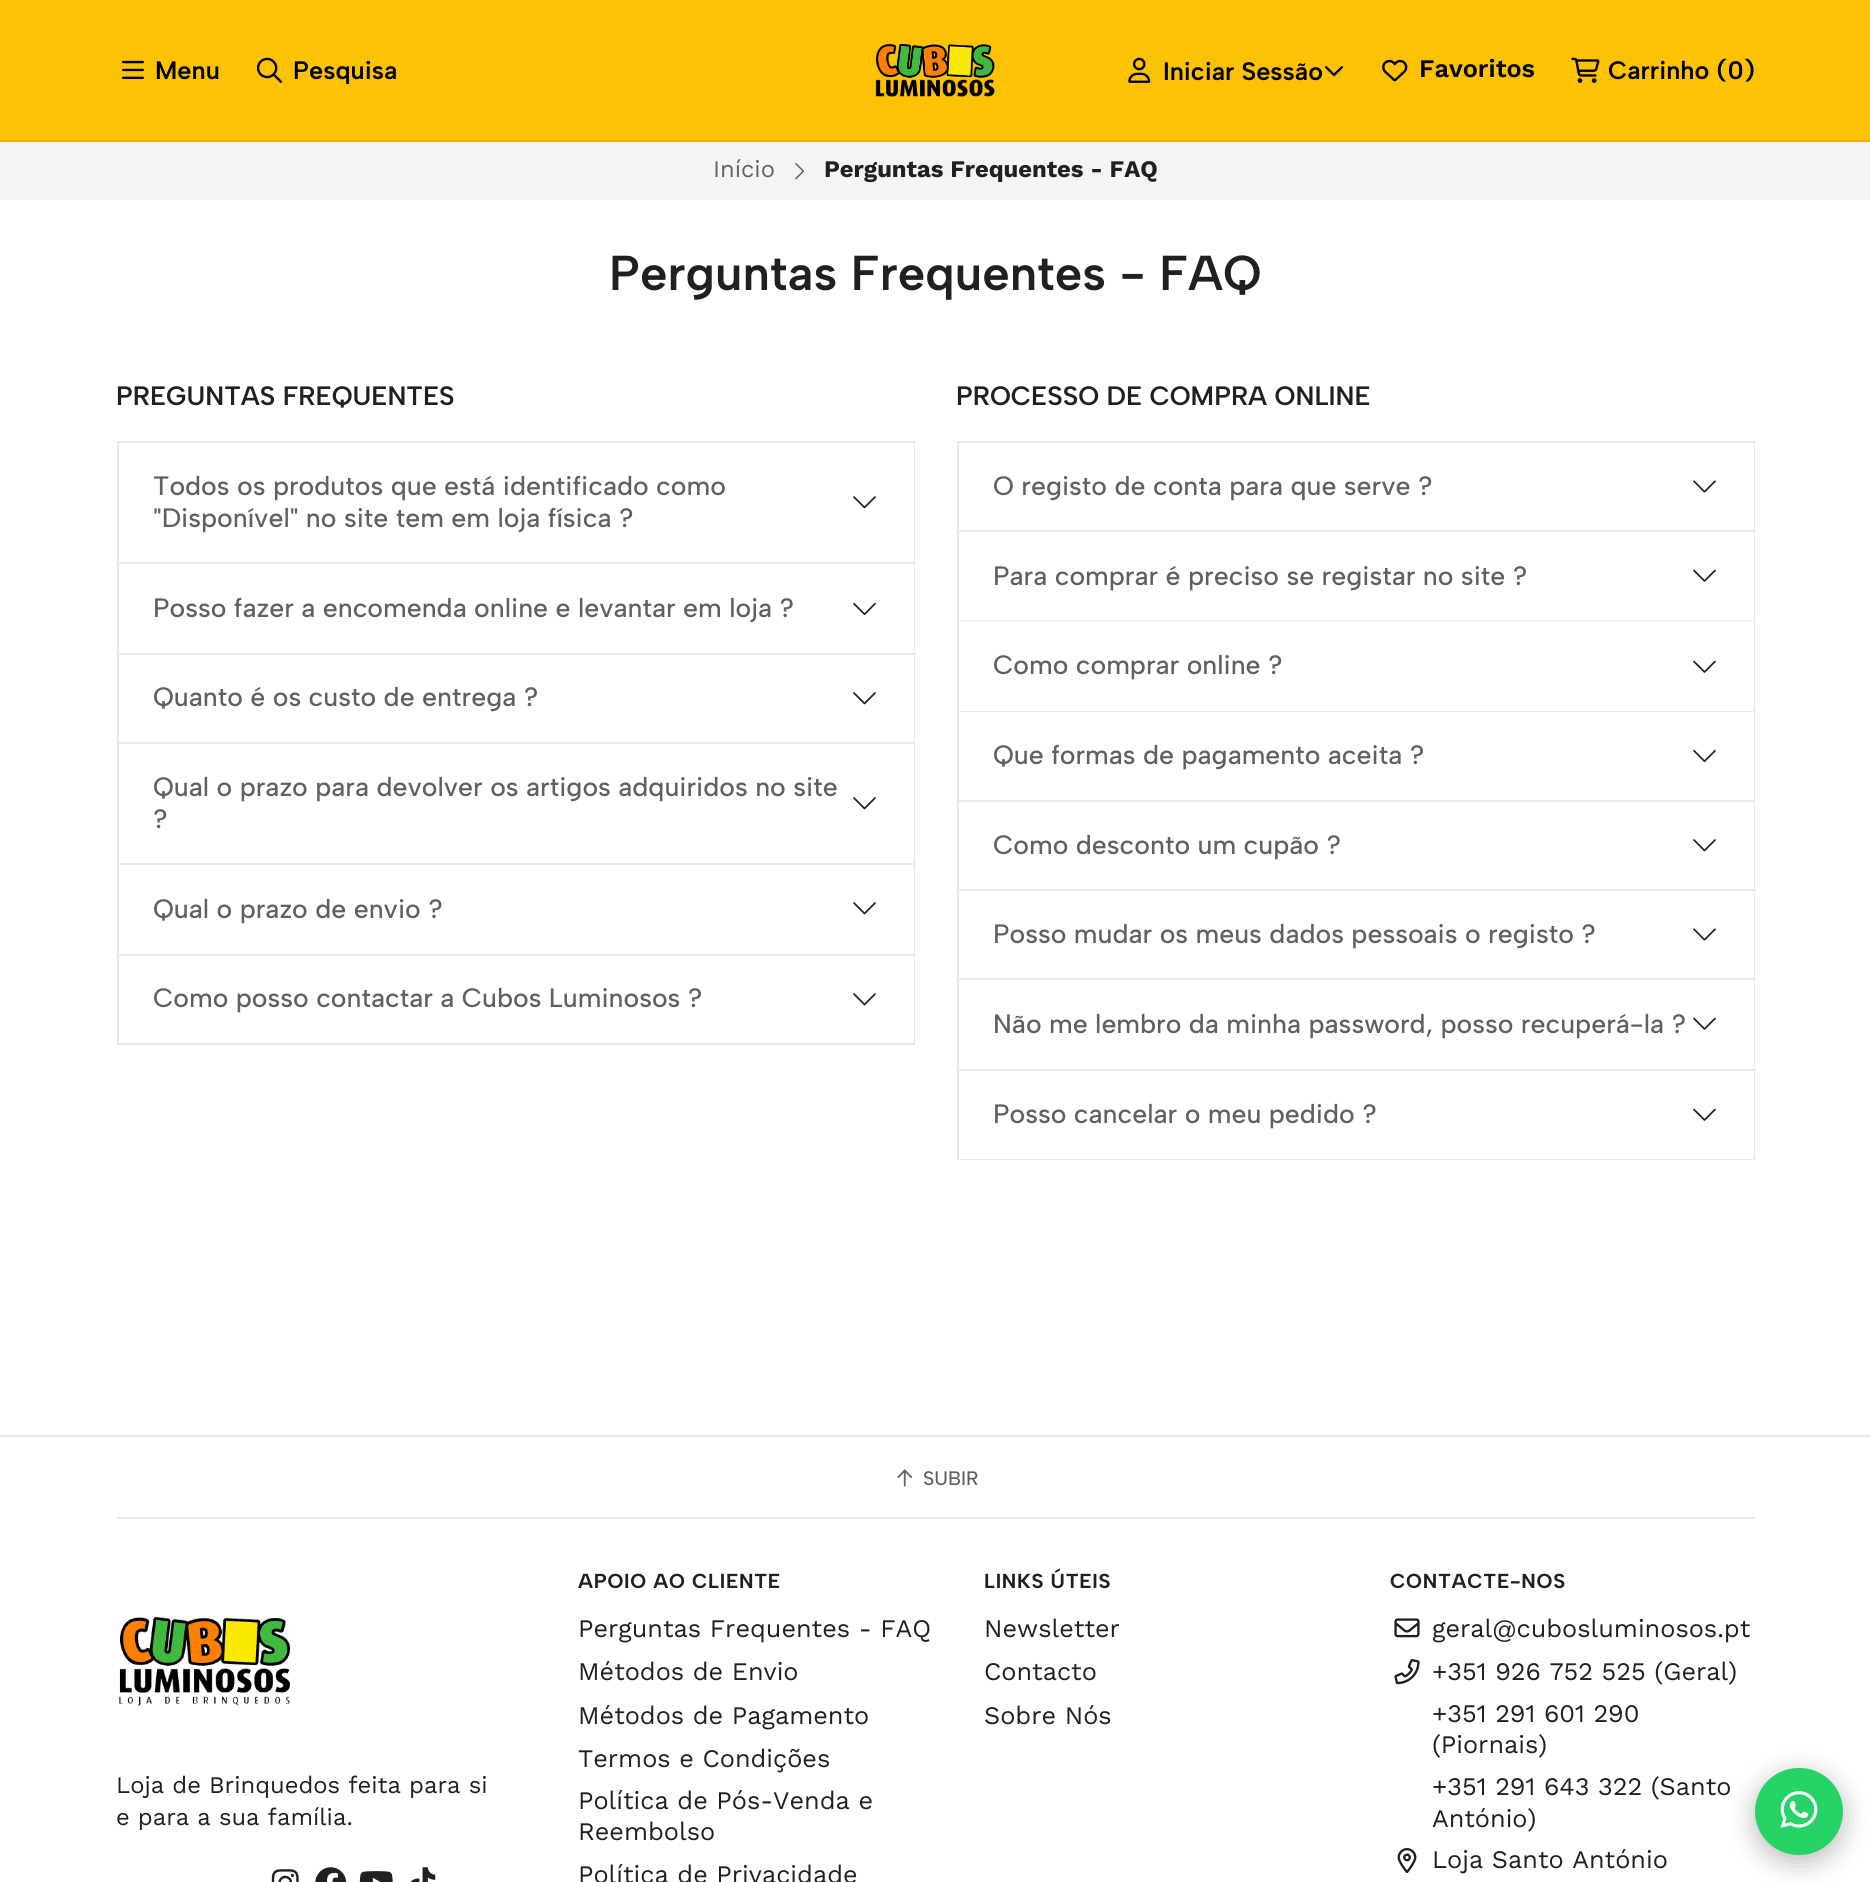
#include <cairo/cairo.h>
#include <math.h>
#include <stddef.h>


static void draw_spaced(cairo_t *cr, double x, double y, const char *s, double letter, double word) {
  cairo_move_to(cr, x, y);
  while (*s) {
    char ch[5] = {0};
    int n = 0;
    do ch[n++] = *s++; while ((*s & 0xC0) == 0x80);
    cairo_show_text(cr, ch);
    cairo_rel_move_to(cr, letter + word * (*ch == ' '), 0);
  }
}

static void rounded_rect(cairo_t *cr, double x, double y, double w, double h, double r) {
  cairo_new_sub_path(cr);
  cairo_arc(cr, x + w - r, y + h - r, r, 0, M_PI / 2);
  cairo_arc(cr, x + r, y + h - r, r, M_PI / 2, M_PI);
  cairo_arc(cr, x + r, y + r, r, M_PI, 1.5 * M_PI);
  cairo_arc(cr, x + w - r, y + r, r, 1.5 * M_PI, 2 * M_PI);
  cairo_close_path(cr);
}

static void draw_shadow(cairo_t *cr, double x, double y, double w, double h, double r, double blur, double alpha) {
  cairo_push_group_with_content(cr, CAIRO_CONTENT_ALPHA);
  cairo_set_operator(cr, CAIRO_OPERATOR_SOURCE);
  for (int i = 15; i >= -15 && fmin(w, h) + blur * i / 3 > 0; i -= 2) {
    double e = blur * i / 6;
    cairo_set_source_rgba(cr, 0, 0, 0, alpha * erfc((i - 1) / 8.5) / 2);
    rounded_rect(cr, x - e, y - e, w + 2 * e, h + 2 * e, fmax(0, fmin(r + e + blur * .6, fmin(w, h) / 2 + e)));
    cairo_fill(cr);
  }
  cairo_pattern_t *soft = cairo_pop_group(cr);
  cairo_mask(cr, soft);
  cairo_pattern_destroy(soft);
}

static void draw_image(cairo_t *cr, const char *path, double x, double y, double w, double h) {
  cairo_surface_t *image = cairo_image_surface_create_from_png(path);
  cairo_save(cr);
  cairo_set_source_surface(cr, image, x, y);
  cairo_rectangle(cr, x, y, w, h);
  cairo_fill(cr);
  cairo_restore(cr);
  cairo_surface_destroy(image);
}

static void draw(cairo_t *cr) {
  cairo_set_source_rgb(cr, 1, 1, 1);
  cairo_paint(cr);
  cairo_set_source_rgb(cr, 253 / 255.0, 194 / 255.0, 4 / 255.0);
  cairo_rectangle(cr, 0, 0, 1870, 140);
  cairo_fill(cr);
  cairo_set_source_rgb(cr, 231 / 255.0, 178 / 255.0, 7 / 255.0);
  cairo_rectangle(cr, 0, 140, 1870, 2);
  cairo_fill(cr);
  draw_image(cr, "images/1.png", 122, 60, 22, 19);
  draw_image(cr, "images/2.png", 256, 57, 27, 26);
  draw_image(cr, "images/3.png", 875, 43, 120, 54);
  draw_image(cr, "images/4.png", 1128, 57, 23, 26);
  draw_image(cr, "images/5.png", 1325, 66, 18, 11);
  draw_image(cr, "images/6.png", 1382, 59, 26, 23);
  draw_image(cr, "images/7.png", 1571, 57, 29, 26);
  cairo_set_source_rgb(cr, 244 / 255.0, 244 / 255.0, 244 / 255.0);
  cairo_rectangle(cr, 0, 142, 1870, 58);
  cairo_fill(cr);
  draw_image(cr, "images/8.png", 795, 163, 9, 17);
  cairo_rectangle(cr, 118, 442, 796, 602);
  cairo_set_source_rgb(cr, 233 / 255.0, 233 / 255.0, 233 / 255.0);
  cairo_stroke(cr);
  cairo_set_source_rgb(cr, 1, 1, 1);
  cairo_rectangle(cr, 913, 443, 1, 119);
  cairo_fill(cr);
  cairo_set_source_rgb(cr, 233 / 255.0, 233 / 255.0, 233 / 255.0);
  cairo_rectangle(cr, 119, 562, 795, 2);
  cairo_fill(cr);
  draw_image(cr, "images/9.png", 853, 496, 23, 13);
  cairo_set_source_rgb(cr, 1, 1, 1);
  cairo_rectangle(cr, 913, 564, 1, 89);
  cairo_fill(cr);
  cairo_set_source_rgb(cr, 233 / 255.0, 233 / 255.0, 233 / 255.0);
  cairo_rectangle(cr, 119, 653, 795, 2);
  cairo_fill(cr);
  draw_image(cr, "images/10.png", 853, 603, 23, 13);
  cairo_set_source_rgb(cr, 1, 1, 1);
  cairo_rectangle(cr, 913, 655, 1, 87);
  cairo_fill(cr);
  cairo_set_source_rgb(cr, 233 / 255.0, 233 / 255.0, 233 / 255.0);
  cairo_rectangle(cr, 119, 742, 795, 2);
  cairo_fill(cr);
  draw_image(cr, "images/9.png", 853, 692, 23, 13);
  cairo_set_source_rgb(cr, 1, 1, 1);
  cairo_rectangle(cr, 913, 744, 1, 119);
  cairo_fill(cr);
  cairo_set_source_rgb(cr, 233 / 255.0, 233 / 255.0, 233 / 255.0);
  cairo_rectangle(cr, 119, 863, 795, 2);
  cairo_fill(cr);
  draw_image(cr, "images/9.png", 853, 797, 23, 13);
  cairo_set_source_rgb(cr, 1, 1, 1);
  cairo_rectangle(cr, 913, 865, 1, 89);
  cairo_fill(cr);
  cairo_set_source_rgb(cr, 233 / 255.0, 233 / 255.0, 233 / 255.0);
  cairo_rectangle(cr, 119, 954, 795, 2);
  cairo_fill(cr);
  draw_image(cr, "images/9.png", 853, 902, 23, 13);
  cairo_set_source_rgb(cr, 1, 1, 1);
  cairo_rectangle(cr, 913, 956, 1, 87);
  cairo_fill(cr);
  draw_image(cr, "images/9.png", 853, 993, 23, 13);
  cairo_rectangle(cr, 958, 442, 796, 717);
  cairo_set_source_rgb(cr, 233 / 255.0, 233 / 255.0, 233 / 255.0);
  cairo_stroke(cr);
  cairo_set_source_rgb(cr, 1, 1, 1);
  cairo_rectangle(cr, 1753, 443, 1, 87);
  cairo_fill(cr);
  cairo_set_source_rgb(cr, 233 / 255.0, 233 / 255.0, 233 / 255.0);
  cairo_rectangle(cr, 959, 530, 795, 2);
  cairo_fill(cr);
  draw_image(cr, "images/11.png", 1693, 480, 23, 13);
  cairo_set_source_rgb(cr, 1, 1, 1);
  cairo_rectangle(cr, 1753, 532, 1, 268);
  cairo_fill(cr);
  cairo_set_source_rgba(cr, 35 / 255.0, 31 / 255.0, 32 / 255.0, 0.1);
  cairo_rectangle(cr, 959, 620, 795, 1);
  cairo_fill(cr);
  draw_image(cr, "images/12.png", 1693, 569, 23, 13);
  cairo_rectangle(cr, 959, 711, 795, 1);
  cairo_fill(cr);
  draw_image(cr, "images/12.png", 1693, 660, 23, 13);
  cairo_set_source_rgb(cr, 233 / 255.0, 233 / 255.0, 233 / 255.0);
  cairo_rectangle(cr, 959, 800, 795, 2);
  cairo_fill(cr);
  draw_image(cr, "images/10.png", 1693, 750, 23, 13);
  cairo_set_source_rgb(cr, 1, 1, 1);
  cairo_rectangle(cr, 1753, 802, 1, 87);
  cairo_fill(cr);
  cairo_set_source_rgb(cr, 233 / 255.0, 233 / 255.0, 233 / 255.0);
  cairo_rectangle(cr, 959, 889, 795, 2);
  cairo_fill(cr);
  draw_image(cr, "images/9.png", 1693, 839, 23, 13);
  cairo_set_source_rgb(cr, 1, 1, 1);
  cairo_rectangle(cr, 1753, 891, 1, 87);
  cairo_fill(cr);
  cairo_set_source_rgb(cr, 233 / 255.0, 233 / 255.0, 233 / 255.0);
  cairo_rectangle(cr, 959, 978, 795, 2);
  cairo_fill(cr);
  draw_image(cr, "images/11.png", 1693, 928, 23, 13);
  cairo_set_source_rgb(cr, 1, 1, 1);
  cairo_rectangle(cr, 1753, 980, 1, 89);
  cairo_fill(cr);
  cairo_set_source_rgb(cr, 233 / 255.0, 233 / 255.0, 233 / 255.0);
  cairo_rectangle(cr, 959, 1069, 795, 2);
  cairo_fill(cr);
  draw_image(cr, "images/12.png", 1693, 1017, 23, 13);
  cairo_set_source_rgb(cr, 1, 1, 1);
  cairo_rectangle(cr, 959, 1071, 795, 88);
  cairo_fill(cr);
  draw_image(cr, "images/12.png", 1693, 1108, 23, 13);
  cairo_set_source_rgb(cr, 233 / 255.0, 233 / 255.0, 233 / 255.0);
  cairo_rectangle(cr, 0, 1435, 1870, 2);
  cairo_fill(cr);
  draw_image(cr, "images/13.png", 897, 1469, 15, 18);
  cairo_rectangle(cr, 117, 1517, 1638, 2);
  cairo_fill(cr);
  draw_image(cr, "images/14.png", 119, 1616, 172, 90);
  draw_image(cr, "images/15.png", 271, 1869, 28, 13);
  draw_image(cr, "images/16.png", 315, 1867, 32, 15);
  draw_image(cr, "images/17.png", 359, 1871, 34, 11);
  draw_image(cr, "images/18.png", 410, 1867, 26, 15);
  draw_image(cr, "images/19.png", 1394, 1618, 26, 20);
  draw_image(cr, "images/20.png", 1394, 1659, 26, 26);
  draw_image(cr, "images/21.png", 1397, 1848, 20, 26);
  cairo_set_source_rgb(cr, 35 / 255.0, 31 / 255.0, 32 / 255.0);
  draw_shadow(cr, 1755, 1775, 88, 87, 43.5, 13, 0.3);
  cairo_set_source_rgb(cr, 37 / 255.0, 211 / 255.0, 102 / 255.0);
  rounded_rect(cr, 1755, 1768, 88, 87, 43.5);
  cairo_fill(cr);
  draw_image(cr, "images/22.png", 1780, 1791, 38, 37);
  cairo_select_font_face(cr, "Albert Sans SemiBold", CAIRO_FONT_SLANT_NORMAL, CAIRO_FONT_WEIGHT_NORMAL);
  cairo_set_font_size(cr, 25.25);
  cairo_set_source_rgb(cr, 0, 0, 0);
  cairo_move_to(cr, 155, 79);
  cairo_show_text(cr, "Menu");
  cairo_move_to(cr, 293, 79);
  cairo_show_text(cr, "Pesquisa");
  cairo_move_to(cr, 1163, 80);
  cairo_show_text(cr, "Iniciar Sessão");
  cairo_select_font_face(cr, "Work Sans SemiBold", CAIRO_FONT_SLANT_NORMAL, CAIRO_FONT_WEIGHT_NORMAL);
  cairo_move_to(cr, 1419, 77);
  cairo_show_text(cr, "Favoritos");
  cairo_select_font_face(cr, "Albert Sans SemiBold", CAIRO_FONT_SLANT_NORMAL, CAIRO_FONT_WEIGHT_NORMAL);
  cairo_move_to(cr, 1608, 79);
  cairo_show_text(cr, "Carrinho (0)");
  cairo_select_font_face(cr, "Work Sans", CAIRO_FONT_SLANT_NORMAL, CAIRO_FONT_WEIGHT_NORMAL);
  cairo_set_font_size(cr, 23.75);
  cairo_set_source_rgb(cr, 98 / 255.0, 95 / 255.0, 96 / 255.0);
  cairo_move_to(cr, 713, 177);
  cairo_show_text(cr, "Início");
  cairo_select_font_face(cr, "Work Sans", CAIRO_FONT_SLANT_NORMAL, CAIRO_FONT_WEIGHT_BOLD);
  cairo_set_source_rgb(cr, 35 / 255.0, 31 / 255.0, 32 / 255.0);
  cairo_move_to(cr, 824, 177);
  cairo_show_text(cr, "Perguntas Frequentes - FAQ");
  cairo_select_font_face(cr, "Albert Sans SemiBold", CAIRO_FONT_SLANT_NORMAL, CAIRO_FONT_WEIGHT_NORMAL);
  cairo_set_font_size(cr, 49);
  cairo_move_to(cr, 609, 290);
  cairo_show_text(cr, "Perguntas Frequentes - FAQ");
  cairo_set_font_size(cr, 26.6);
  cairo_move_to(cr, 116, 405);
  cairo_show_text(cr, "PREGUNTAS FREQUENTES");
  cairo_select_font_face(cr, "Albert Sans Medium", CAIRO_FONT_SLANT_NORMAL, CAIRO_FONT_WEIGHT_NORMAL);
  cairo_set_source_rgb(cr, 98 / 255.0, 95 / 255.0, 96 / 255.0);
  cairo_move_to(cr, 153, 495);
  cairo_show_text(cr, "Todos os produtos que está identificado como");
  cairo_move_to(cr, 153, 527);
  cairo_show_text(cr, "\"Disponível\" no site tem em loja física ?");
  cairo_move_to(cr, 153, 617);
  cairo_show_text(cr, "Posso fazer a encomenda online e levantar em loja ?");
  cairo_move_to(cr, 153, 706);
  cairo_show_text(cr, "Quanto é os custo de entrega ?");
  cairo_move_to(cr, 153, 796);
  cairo_show_text(cr, "Qual o prazo para devolver os artigos adquiridos no site");
  cairo_move_to(cr, 153, 828);
  cairo_show_text(cr, "?");
  cairo_move_to(cr, 153, 918);
  cairo_show_text(cr, "Qual o prazo de envio ?");
  cairo_move_to(cr, 153, 1007);
  cairo_show_text(cr, "Como posso contactar a Cubos Luminosos ?");
  cairo_select_font_face(cr, "Albert Sans SemiBold", CAIRO_FONT_SLANT_NORMAL, CAIRO_FONT_WEIGHT_NORMAL);
  cairo_set_source_rgb(cr, 35 / 255.0, 31 / 255.0, 32 / 255.0);
  cairo_move_to(cr, 956, 405);
  cairo_show_text(cr, "PROCESSO DE COMPRA ONLINE");
  cairo_select_font_face(cr, "Albert Sans Medium", CAIRO_FONT_SLANT_NORMAL, CAIRO_FONT_WEIGHT_NORMAL);
  cairo_set_source_rgb(cr, 98 / 255.0, 95 / 255.0, 96 / 255.0);
  cairo_move_to(cr, 993, 495);
  cairo_show_text(cr, "O registo de conta para que serve ?");
  cairo_move_to(cr, 993, 585);
  cairo_show_text(cr, "Para comprar é preciso se registar no site ?");
  cairo_move_to(cr, 993, 674);
  cairo_show_text(cr, "Como comprar online ?");
  cairo_move_to(cr, 993, 764);
  cairo_show_text(cr, "Que formas de pagamento aceita ?");
  cairo_move_to(cr, 993, 854);
  cairo_show_text(cr, "Como desconto um cupão ?");
  cairo_move_to(cr, 993, 943);
  cairo_show_text(cr, "Posso mudar os meus dados pessoais o registo ?");
  cairo_move_to(cr, 993, 1033);
  cairo_show_text(cr, "Não me lembro da minha password, posso recuperá-la ?");
  cairo_move_to(cr, 993, 1123);
  cairo_show_text(cr, "Posso cancelar o meu pedido ?");
  cairo_set_font_size(cr, 19.5);
  cairo_move_to(cr, 923, 1485);
  cairo_show_text(cr, "SUBIR");
  cairo_select_font_face(cr, "Work Sans", CAIRO_FONT_SLANT_NORMAL, CAIRO_FONT_WEIGHT_NORMAL);
  cairo_set_font_size(cr, 23.75);
  cairo_set_source_rgb(cr, 35 / 255.0, 31 / 255.0, 32 / 255.0);
  cairo_move_to(cr, 116, 1793);
  cairo_show_text(cr, "Loja de Brinquedos feita para si");
  cairo_move_to(cr, 116, 1825);
  cairo_show_text(cr, "e para a sua família.");
  cairo_select_font_face(cr, "Albert Sans", CAIRO_FONT_SLANT_NORMAL, CAIRO_FONT_WEIGHT_BOLD);
  cairo_set_font_size(cr, 20.25);
  draw_spaced(cr, 578, 1588, "APOIO AO CLIENTE", 0.75, 0);
  cairo_select_font_face(cr, "Work Sans", CAIRO_FONT_SLANT_NORMAL, CAIRO_FONT_WEIGHT_NORMAL);
  cairo_set_font_size(cr, 25.25);
  cairo_move_to(cr, 578, 1637);
  cairo_show_text(cr, "Perguntas Frequentes - FAQ");
  cairo_move_to(cr, 578, 1680);
  cairo_show_text(cr, "Métodos de Envio");
  cairo_move_to(cr, 578, 1724);
  cairo_show_text(cr, "Métodos de Pagamento");
  cairo_move_to(cr, 578, 1767);
  cairo_show_text(cr, "Termos e Condições");
  cairo_move_to(cr, 578, 1809);
  cairo_show_text(cr, "Política de Pós-Venda e");
  cairo_move_to(cr, 578, 1840);
  cairo_show_text(cr, "Reembolso");
  cairo_move_to(cr, 578, 1883);
  cairo_show_text(cr, "Política de Privacidade");
  cairo_select_font_face(cr, "Albert Sans", CAIRO_FONT_SLANT_NORMAL, CAIRO_FONT_WEIGHT_BOLD);
  cairo_set_font_size(cr, 20.25);
  draw_spaced(cr, 984, 1588, "LINKS ÚTEIS", 0.75, 0);
  cairo_select_font_face(cr, "Work Sans", CAIRO_FONT_SLANT_NORMAL, CAIRO_FONT_WEIGHT_NORMAL);
  cairo_set_font_size(cr, 25.25);
  cairo_move_to(cr, 984, 1637);
  cairo_show_text(cr, "Newsletter");
  cairo_move_to(cr, 984, 1680);
  cairo_show_text(cr, "Contacto");
  cairo_move_to(cr, 984, 1724);
  cairo_show_text(cr, "Sobre Nós");
  cairo_select_font_face(cr, "Albert Sans", CAIRO_FONT_SLANT_NORMAL, CAIRO_FONT_WEIGHT_BOLD);
  cairo_set_font_size(cr, 20.25);
  draw_spaced(cr, 1390, 1588, "CONTACTE-NOS", 0.75, 0);
  cairo_select_font_face(cr, "Work Sans", CAIRO_FONT_SLANT_NORMAL, CAIRO_FONT_WEIGHT_NORMAL);
  cairo_set_font_size(cr, 25.25);
  cairo_move_to(cr, 1432, 1637);
  cairo_show_text(cr, "geral@cubosluminosos.pt");
  cairo_move_to(cr, 1432, 1680);
  cairo_show_text(cr, "+351 926 752 525 (Geral)");
  cairo_move_to(cr, 1432, 1722);
  cairo_show_text(cr, "+351 291 601 290");
  cairo_move_to(cr, 1432, 1753);
  cairo_show_text(cr, "(Piornais)");
  cairo_move_to(cr, 1432, 1795);
  cairo_show_text(cr, "+351 291 643 322 (Santo");
  cairo_move_to(cr, 1432, 1827);
  cairo_show_text(cr, "António)");
  cairo_move_to(cr, 1432, 1868);
  cairo_show_text(cr, "Loja Santo António");
}

int main(void) {
  cairo_surface_t *surface = cairo_image_surface_create(CAIRO_FORMAT_RGB24, 1870, 1882);
  cairo_t *cr = cairo_create(surface);
  cairo_font_options_t *options = cairo_font_options_create();
  cairo_font_options_set_hint_metrics(options, CAIRO_HINT_METRICS_OFF);
  cairo_font_options_set_hint_style(options, CAIRO_HINT_STYLE_NONE);
  cairo_set_font_options(cr, options);
  cairo_set_miter_limit(cr, 4);
  draw(cr);
  cairo_surface_write_to_png(surface, "out.png");
  cairo_font_options_destroy(options);
  cairo_destroy(cr);
  cairo_surface_destroy(surface);
  return 0;
}
